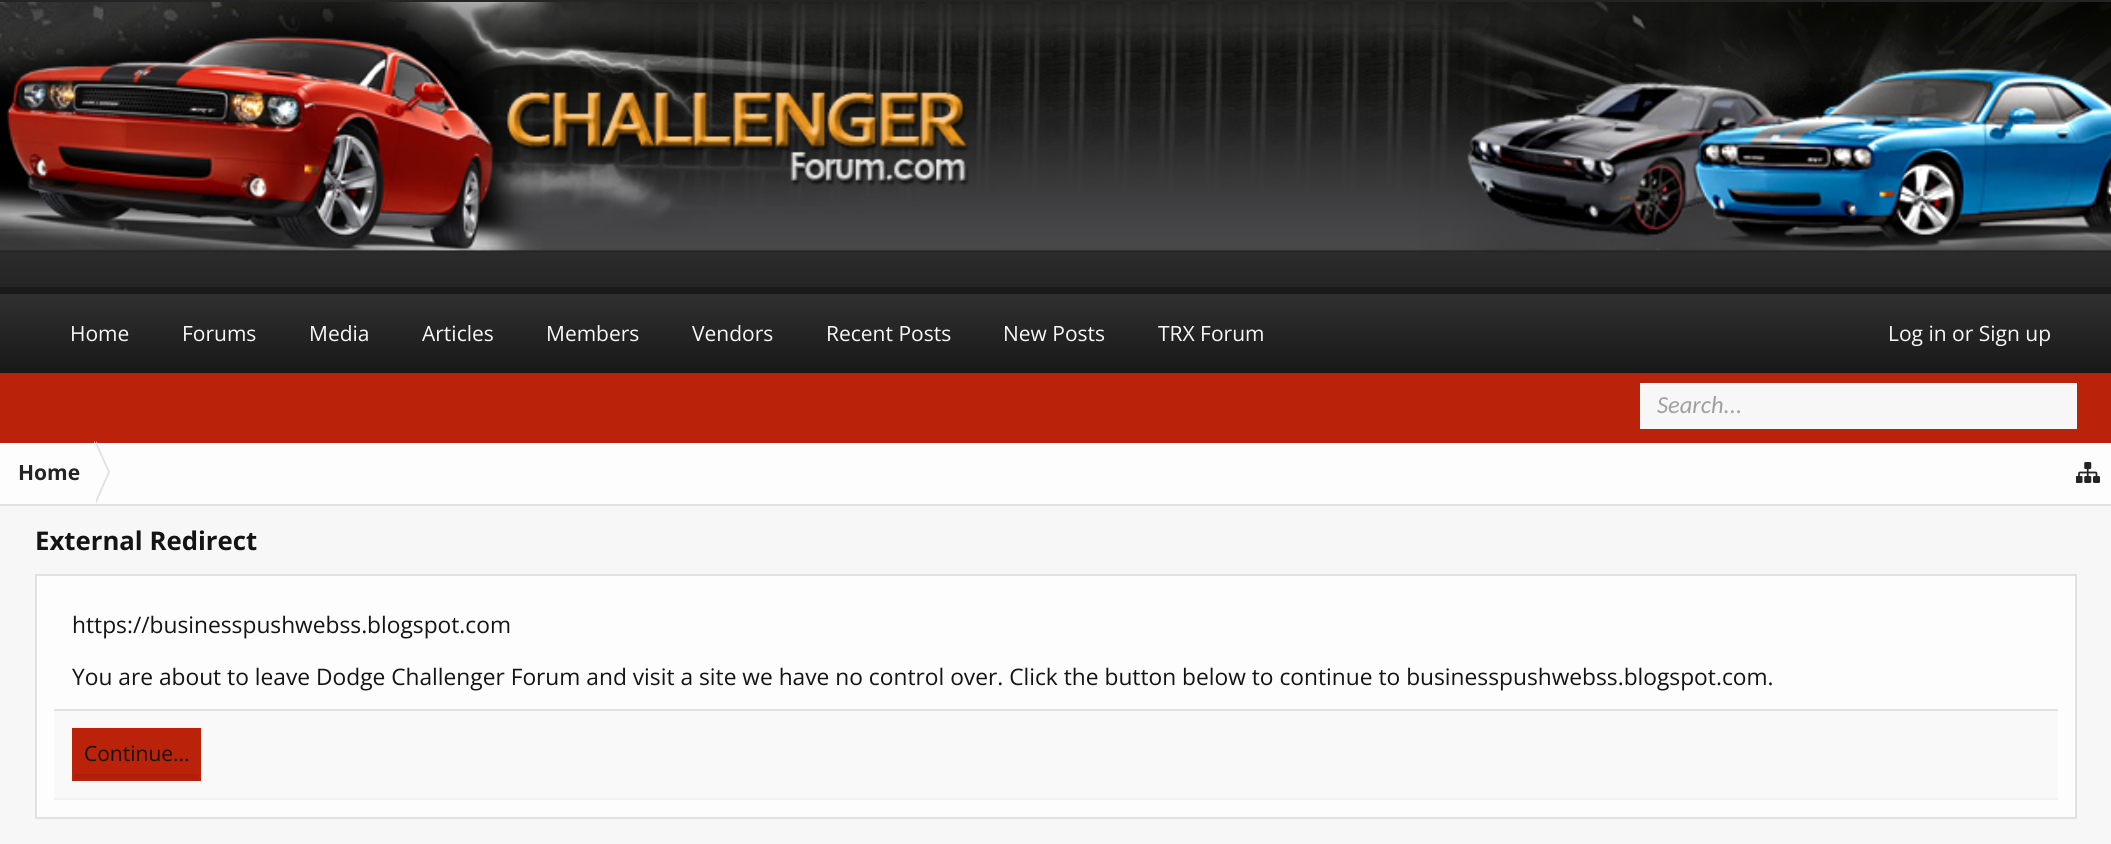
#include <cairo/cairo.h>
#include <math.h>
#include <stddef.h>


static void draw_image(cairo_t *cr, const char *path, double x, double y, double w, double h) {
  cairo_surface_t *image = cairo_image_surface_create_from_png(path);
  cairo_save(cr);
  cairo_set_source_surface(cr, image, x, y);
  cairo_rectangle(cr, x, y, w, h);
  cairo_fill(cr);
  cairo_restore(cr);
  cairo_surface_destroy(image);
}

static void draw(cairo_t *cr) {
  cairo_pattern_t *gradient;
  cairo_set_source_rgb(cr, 247 / 255.0, 247 / 255.0, 247 / 255.0);
  cairo_paint(cr);
  cairo_set_source_rgb(cr, 36 / 255.0, 36 / 255.0, 36 / 255.0);
  cairo_rectangle(cr, 0, 0, 2111, 2);
  cairo_fill(cr);
  cairo_set_source_rgb(cr, 26 / 255.0, 26 / 255.0, 26 / 255.0);
  cairo_rectangle(cr, 0, 287, 2111, 7);
  cairo_fill(cr);
  draw_image(cr, "images/1.png", 0, 2, 2111, 285);
  draw_image(cr, "images/2.png", 0, 2, 998, 249);
  draw_image(cr, "images/3.png", 1405, 2, 706, 249);
  gradient = cairo_pattern_create_linear(1056, 294, 1056, 373);
  cairo_pattern_add_color_stop_rgba(gradient, 0, 48 / 255.0, 48 / 255.0, 48 / 255.0, 1);
  cairo_pattern_add_color_stop_rgba(gradient, 1, 24 / 255.0, 24 / 255.0, 24 / 255.0, 1);
  cairo_set_source(cr, gradient);
  cairo_pattern_destroy(gradient);
  cairo_rectangle(cr, 0, 294, 2111, 79);
  cairo_fill(cr);
  cairo_set_source_rgb(cr, 186 / 255.0, 34 / 255.0, 10 / 255.0);
  cairo_rectangle(cr, 0, 373, 2111, 70);
  cairo_fill(cr);
  cairo_set_source_rgb(cr, 247 / 255.0, 247 / 255.0, 247 / 255.0);
  cairo_rectangle(cr, 1640, 383, 437, 46);
  cairo_fill(cr);
  cairo_set_source_rgb(cr, 253 / 255.0, 253 / 255.0, 253 / 255.0);
  cairo_rectangle(cr, 0, 443, 2111, 61);
  cairo_fill(cr);
  cairo_set_source_rgb(cr, 225 / 255.0, 225 / 255.0, 225 / 255.0);
  cairo_rectangle(cr, 0, 504, 2111, 2);
  cairo_fill(cr);
  cairo_new_path(cr);
  cairo_move_to(cr, 96, 504);
  cairo_line_to(cr, 96, 441);
  cairo_line_to(cr, 110, 472);
  cairo_close_path(cr);
  cairo_fill(cr);
  cairo_set_source_rgb(cr, 253 / 255.0, 253 / 255.0, 253 / 255.0);
  cairo_new_path(cr);
  cairo_move_to(cr, 94, 504);
  cairo_line_to(cr, 94, 441);
  cairo_line_to(cr, 108, 472);
  cairo_close_path(cr);
  cairo_fill(cr);
  draw_image(cr, "images/4.png", 2076, 462, 24, 21);
  cairo_rectangle(cr, 36, 575, 2040, 243);
  cairo_fill_preserve(cr);
  cairo_set_source_rgb(cr, 225 / 255.0, 225 / 255.0, 225 / 255.0);
  cairo_stroke(cr);
  cairo_rectangle(cr, 54, 709, 2004, 2);
  cairo_fill(cr);
  cairo_set_source_rgb(cr, 249 / 255.0, 249 / 255.0, 249 / 255.0);
  cairo_rectangle(cr, 54, 711, 2004, 87);
  cairo_fill(cr);
  cairo_set_source_rgb(cr, 241 / 255.0, 241 / 255.0, 241 / 255.0);
  cairo_rectangle(cr, 54, 798, 2004, 2);
  cairo_fill(cr);
  cairo_set_source_rgb(cr, 186 / 255.0, 34 / 255.0, 10 / 255.0);
  cairo_rectangle(cr, 74, 730, 125, 44);
  cairo_fill(cr);
  cairo_set_source_rgb(cr, 175 / 255.0, 32 / 255.0, 9 / 255.0);
  cairo_rectangle(cr, 74, 774, 126, 5);
  cairo_fill(cr);
  cairo_rectangle(cr, 73, 729, 127, 51);
  cairo_set_source_rgb(cr, 186 / 255.0, 34 / 255.0, 10 / 255.0);
  cairo_stroke(cr);
  cairo_select_font_face(cr, "Open Sans", CAIRO_FONT_SLANT_NORMAL, CAIRO_FONT_WEIGHT_NORMAL);
  cairo_set_font_size(cr, 21);
  cairo_set_source_rgb(cr, 248 / 255.0, 248 / 255.0, 248 / 255.0);
  cairo_move_to(cr, 70, 341);
  cairo_show_text(cr, "Home");
  cairo_move_to(cr, 182, 341);
  cairo_show_text(cr, "Forums");
  cairo_move_to(cr, 309, 341);
  cairo_show_text(cr, "Media");
  cairo_move_to(cr, 422, 341);
  cairo_show_text(cr, "Articles");
  cairo_move_to(cr, 546, 341);
  cairo_show_text(cr, "Members");
  cairo_move_to(cr, 692, 341);
  cairo_show_text(cr, "Vendors");
  cairo_move_to(cr, 826, 341);
  cairo_show_text(cr, "Recent Posts");
  cairo_move_to(cr, 1003, 341);
  cairo_show_text(cr, "New Posts");
  cairo_move_to(cr, 1158, 341);
  cairo_show_text(cr, "TRX Forum");
  cairo_move_to(cr, 1888, 341);
  cairo_show_text(cr, "Log in or Sign up");
  cairo_select_font_face(cr, "Carlito", CAIRO_FONT_SLANT_ITALIC, CAIRO_FONT_WEIGHT_NORMAL);
  cairo_set_font_size(cr, 24.5);
  cairo_set_source_rgb(cr, 160 / 255.0, 160 / 255.0, 160 / 255.0);
  cairo_move_to(cr, 1657, 413);
  cairo_show_text(cr, "Search...");
  cairo_select_font_face(cr, "Open Sans", CAIRO_FONT_SLANT_NORMAL, CAIRO_FONT_WEIGHT_BOLD);
  cairo_set_font_size(cr, 21);
  cairo_set_source_rgb(cr, 36 / 255.0, 36 / 255.0, 36 / 255.0);
  cairo_move_to(cr, 18, 480);
  cairo_show_text(cr, "Home");
  cairo_set_font_size(cr, 25.75);
  cairo_set_source_rgb(cr, 20 / 255.0, 20 / 255.0, 20 / 255.0);
  cairo_move_to(cr, 35, 550);
  cairo_show_text(cr, "External Redirect");
  cairo_select_font_face(cr, "Open Sans", CAIRO_FONT_SLANT_NORMAL, CAIRO_FONT_WEIGHT_NORMAL);
  cairo_set_font_size(cr, 22.75);
  cairo_move_to(cr, 72, 633);
  cairo_show_text(cr, "https://businesspushwebss.blogspot.com");
  cairo_move_to(cr, 72, 685);
  cairo_show_text(cr, "You are about to leave Dodge Challenger Forum and visit a site we have no control over. Click the button below to continue to businesspushwebss.blogspot.com.");
  cairo_set_font_size(cr, 21);
  cairo_move_to(cr, 84, 761);
  cairo_show_text(cr, "Continue...");
}

int main(void) {
  cairo_surface_t *surface = cairo_image_surface_create(CAIRO_FORMAT_RGB24, 2111, 844);
  cairo_t *cr = cairo_create(surface);
  cairo_font_options_t *options = cairo_font_options_create();
  cairo_font_options_set_hint_metrics(options, CAIRO_HINT_METRICS_OFF);
  cairo_font_options_set_hint_style(options, CAIRO_HINT_STYLE_NONE);
  cairo_set_font_options(cr, options);
  cairo_set_miter_limit(cr, 4);
  draw(cr);
  cairo_surface_write_to_png(surface, "out.png");
  cairo_font_options_destroy(options);
  cairo_destroy(cr);
  cairo_surface_destroy(surface);
  return 0;
}
